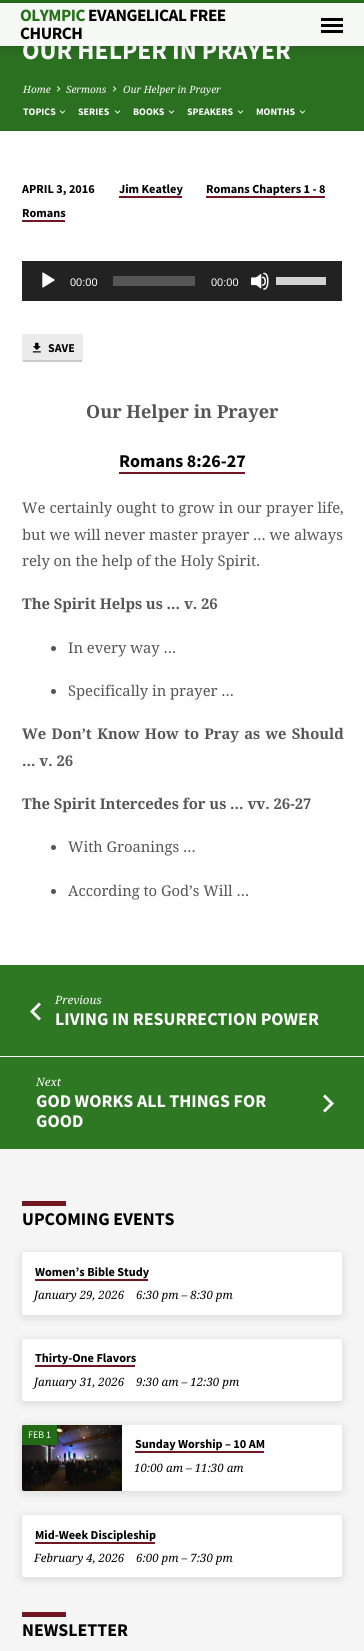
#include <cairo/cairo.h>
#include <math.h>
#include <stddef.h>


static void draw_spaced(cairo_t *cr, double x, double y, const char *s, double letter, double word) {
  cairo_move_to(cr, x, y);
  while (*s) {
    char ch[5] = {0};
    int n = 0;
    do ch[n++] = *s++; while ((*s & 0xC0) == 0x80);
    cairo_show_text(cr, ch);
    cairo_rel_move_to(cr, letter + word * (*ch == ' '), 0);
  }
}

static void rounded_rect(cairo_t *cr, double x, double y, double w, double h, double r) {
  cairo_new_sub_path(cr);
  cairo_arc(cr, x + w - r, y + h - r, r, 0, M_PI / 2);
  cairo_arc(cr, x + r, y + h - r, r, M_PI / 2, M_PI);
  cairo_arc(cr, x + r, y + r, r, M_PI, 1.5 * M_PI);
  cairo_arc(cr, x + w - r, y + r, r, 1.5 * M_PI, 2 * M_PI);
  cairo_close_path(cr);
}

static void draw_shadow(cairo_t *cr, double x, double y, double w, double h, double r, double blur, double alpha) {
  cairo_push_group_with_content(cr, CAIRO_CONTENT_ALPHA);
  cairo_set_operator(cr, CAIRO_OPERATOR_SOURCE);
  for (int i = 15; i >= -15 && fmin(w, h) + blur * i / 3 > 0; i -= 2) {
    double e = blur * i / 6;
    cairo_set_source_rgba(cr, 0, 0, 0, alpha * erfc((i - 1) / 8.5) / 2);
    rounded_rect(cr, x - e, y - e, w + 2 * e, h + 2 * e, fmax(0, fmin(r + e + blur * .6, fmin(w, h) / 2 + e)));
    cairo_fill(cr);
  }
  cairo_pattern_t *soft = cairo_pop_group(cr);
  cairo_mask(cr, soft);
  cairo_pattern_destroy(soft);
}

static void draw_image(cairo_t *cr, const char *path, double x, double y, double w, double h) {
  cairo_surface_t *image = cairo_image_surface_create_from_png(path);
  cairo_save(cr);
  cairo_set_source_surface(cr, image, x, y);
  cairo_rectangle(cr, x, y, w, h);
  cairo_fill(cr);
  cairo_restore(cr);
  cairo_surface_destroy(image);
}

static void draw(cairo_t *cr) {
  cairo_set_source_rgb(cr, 1, 1, 1);
  cairo_paint(cr);
  cairo_set_source_rgb(cr, 35 / 255.0, 112 / 255.0, 24 / 255.0);
  cairo_rectangle(cr, 0, 0, 364, 3);
  cairo_fill(cr);
  cairo_set_source_rgb(cr, 43 / 255.0, 111 / 255.0, 33 / 255.0);
  cairo_rectangle(cr, 0, 3, 364, 128);
  cairo_fill(cr);
  cairo_set_source_rgb(cr, 1, 1, 1);
  cairo_rectangle(cr, 22, 28, 44, 5);
  cairo_fill(cr);
  draw_image(cr, "images/1.png", 57, 86, 4, 6);
  draw_image(cr, "images/1.png", 113, 86, 4, 6);
  draw_image(cr, "images/2.png", 59, 110, 7, 4);
  draw_image(cr, "images/2.png", 114, 110, 7, 4);
  draw_image(cr, "images/2.png", 168, 110, 7, 4);
  draw_image(cr, "images/2.png", 237, 110, 7, 4);
  draw_image(cr, "images/2.png", 299, 110, 7, 4);
  cairo_set_source_rgb(cr, 112 / 255.0, 23 / 255.0, 35 / 255.0);
  cairo_rectangle(cr, 119, 196, 63, 2);
  cairo_fill(cr);
  cairo_rectangle(cr, 206, 196, 119, 2);
  cairo_fill(cr);
  cairo_rectangle(cr, 22, 220, 43, 2);
  cairo_fill(cr);
  cairo_set_source_rgb(cr, 34 / 255.0, 34 / 255.0, 34 / 255.0);
  cairo_rectangle(cr, 22, 261, 320, 40);
  cairo_fill(cr);
  draw_image(cr, "images/3.png", 42, 272, 13, 16);
  cairo_set_source_rgb(cr, 85 / 255.0, 85 / 255.0, 85 / 255.0);
  cairo_rectangle(cr, 113, 276, 82, 10);
  cairo_fill(cr);
  draw_image(cr, "images/4.png", 251, 272, 18, 18);
  cairo_set_source_rgb(cr, 210 / 255.0, 210 / 255.0, 210 / 255.0);
  cairo_rectangle(cr, 276, 277, 50, 8);
  cairo_fill(cr);
  cairo_set_source_rgb(cr, 235 / 255.0, 235 / 255.0, 235 / 255.0);
  rounded_rect(cr, 22, 334, 61, 28, 2);
  cairo_fill(cr);
  cairo_set_source_rgb(cr, 202 / 255.0, 202 / 255.0, 202 / 255.0);
  cairo_rectangle(cr, 23, 360, 59, 2);
  cairo_fill(cr);
  draw_image(cr, "images/5.png", 32, 342, 9, 11);
  cairo_set_source_rgb(cr, 112 / 255.0, 23 / 255.0, 35 / 255.0);
  cairo_rectangle(cr, 119, 472, 126, 2);
  cairo_fill(cr);
  cairo_set_source_rgb(cr, 85 / 255.0, 85 / 255.0, 85 / 255.0);
  cairo_arc(cr, 53.5, 648.5, 2.5, 0, 2 * M_PI);
  cairo_fill(cr);
  cairo_arc(cr, 53.5, 691.5, 2.5, 0, 2 * M_PI);
  cairo_fill(cr);
  cairo_arc(cr, 53.5, 847.5, 2.5, 0, 2 * M_PI);
  cairo_fill(cr);
  cairo_arc(cr, 53.5, 891.5, 2.5, 0, 2 * M_PI);
  cairo_fill(cr);
  cairo_set_source_rgb(cr, 46 / 255.0, 119 / 255.0, 35 / 255.0);
  cairo_rectangle(cr, 0, 965, 364, 184);
  cairo_fill(cr);
  cairo_set_source_rgb(cr, 250 / 255.0, 250 / 255.0, 250 / 255.0);
  cairo_rectangle(cr, 0, 1056, 364, 1);
  cairo_fill(cr);
  cairo_set_source_rgb(cr, 1, 1, 1);
  cairo_new_path(cr);
  cairo_move_to(cr, 41, 1018.5);
  cairo_line_to(cr, 34, 1011.5);
  cairo_line_to(cr, 41, 1004.5);
  cairo_line_to(cr, 39, 1002.5);
  cairo_line_to(cr, 30, 1011.5);
  cairo_line_to(cr, 39, 1020.5);
  cairo_close_path(cr);
  cairo_fill(cr);
  cairo_new_path(cr);
  cairo_move_to(cr, 323, 1110.5);
  cairo_line_to(cr, 330, 1103.5);
  cairo_line_to(cr, 323, 1096.5);
  cairo_line_to(cr, 325, 1094.5);
  cairo_line_to(cr, 334, 1103.5);
  cairo_line_to(cr, 325, 1112.5);
  cairo_close_path(cr);
  cairo_fill(cr);
  cairo_set_source_rgb(cr, 245 / 255.0, 245 / 255.0, 245 / 255.0);
  cairo_rectangle(cr, 0, 1149, 364, 502);
  cairo_fill(cr);
  cairo_set_source_rgb(cr, 112 / 255.0, 23 / 255.0, 35 / 255.0);
  cairo_rectangle(cr, 22, 1201, 44, 5);
  cairo_fill(cr);
  cairo_set_source_rgb(cr, 0, 0, 0);
  draw_shadow(cr, 22, 1254, 320, 63, 2, 5, 0.12);
  cairo_set_source_rgb(cr, 1, 1, 1);
  rounded_rect(cr, 22, 1252, 320, 63, 2);
  cairo_fill(cr);
  cairo_set_source_rgb(cr, 112 / 255.0, 23 / 255.0, 35 / 255.0);
  cairo_rectangle(cr, 35, 1279, 113, 2);
  cairo_fill(cr);
  cairo_set_source_rgb(cr, 0, 0, 0);
  draw_shadow(cr, 22, 1341, 320, 62, 2, 5, 0.12);
  cairo_set_source_rgb(cr, 1, 1, 1);
  rounded_rect(cr, 22, 1339, 320, 62, 2);
  cairo_fill(cr);
  cairo_set_source_rgb(cr, 112 / 255.0, 23 / 255.0, 35 / 255.0);
  cairo_rectangle(cr, 35, 1365, 100, 2);
  cairo_fill(cr);
  cairo_set_source_rgb(cr, 0, 0, 0);
  draw_shadow(cr, 22, 1427, 320, 66, 2, 5, 0.12);
  cairo_set_source_rgb(cr, 1, 1, 1);
  rounded_rect(cr, 22, 1425, 320, 66, 2);
  cairo_fill(cr);
  draw_image(cr, "images/6.png", 22, 1425, 100, 66);
  cairo_set_source_rgba(cr, 35 / 255.0, 112 / 255.0, 23 / 255.0, 0.95);
  cairo_new_path(cr);
  cairo_move_to(cr, 24, 1425);
  cairo_line_to(cr, 57, 1425);
  cairo_line_to(cr, 57, 1443);
  cairo_curve_to(cr, 57, 1444, 56, 1445, 55, 1445);
  cairo_line_to(cr, 22, 1445);
  cairo_line_to(cr, 22, 1427);
  cairo_curve_to(cr, 22, 1426, 23, 1425, 24, 1425);
  cairo_close_path(cr);
  cairo_fill(cr);
  cairo_set_source_rgb(cr, 112 / 255.0, 23 / 255.0, 35 / 255.0);
  cairo_rectangle(cr, 135, 1451, 129, 2);
  cairo_fill(cr);
  cairo_set_source_rgb(cr, 0, 0, 0);
  draw_shadow(cr, 22, 1517, 320, 62, 2, 5, 0.12);
  cairo_set_source_rgb(cr, 1, 1, 1);
  rounded_rect(cr, 22, 1515, 320, 62, 2);
  cairo_fill(cr);
  cairo_set_source_rgb(cr, 112 / 255.0, 23 / 255.0, 35 / 255.0);
  cairo_rectangle(cr, 35, 1542, 120, 2);
  cairo_fill(cr);
  cairo_rectangle(cr, 22, 1612, 44, 5);
  cairo_fill(cr);
  cairo_select_font_face(cr, "Source Sans Pro", CAIRO_FONT_SLANT_NORMAL, CAIRO_FONT_WEIGHT_BOLD);
  cairo_set_font_size(cr, 25.6);
  cairo_set_source_rgb(cr, 1, 1, 1);
  cairo_move_to(cr, 22, 59);
  cairo_show_text(cr, "OUR HELPER IN PRAYER");
  cairo_set_source_rgba(cr, 1, 1, 1, 0.95);
  cairo_rectangle(cr, 0, 3, 364, 43);
  cairo_fill(cr);
  cairo_save(cr);
  cairo_set_fill_rule(cr, CAIRO_FILL_RULE_EVEN_ODD);
  cairo_new_path(cr);
  cairo_move_to(cr, 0, 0);
  cairo_line_to(cr, 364, 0);
  cairo_line_to(cr, 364, 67);
  cairo_line_to(cr, 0, 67);
  cairo_close_path(cr);
  cairo_move_to(cr, 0, 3);
  cairo_line_to(cr, 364, 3);
  cairo_line_to(cr, 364, 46);
  cairo_line_to(cr, 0, 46);
  cairo_close_path(cr);
  cairo_clip(cr);
  cairo_set_source_rgb(cr, 0, 0, 0);
  draw_shadow(cr, 0, 5, 364, 43, 0, 6, 0.14);
  cairo_restore(cr);
  cairo_set_source_rgb(cr, 0, 0, 0);
  cairo_rectangle(cr, 321, 30, 22, 3);
  cairo_fill(cr);
  cairo_rectangle(cr, 321, 24, 22, 3);
  cairo_fill(cr);
  cairo_rectangle(cr, 321, 18, 22, 3);
  cairo_fill(cr);
  cairo_set_font_size(cr, 17.25);
  draw_spaced(cr, 20, 39, "CHURCH", -0.5, 0);
  draw_spaced(cr, 88, 21, "EVANGELICAL FREE", -0.5, 0);
  cairo_set_source_rgb(cr, 35 / 255.0, 112 / 255.0, 23 / 255.0);
  draw_spaced(cr, 20, 21, "OLYMPIC", -0.5, 0);
  cairo_select_font_face(cr, "Noto Serif", CAIRO_FONT_SLANT_ITALIC, CAIRO_FONT_WEIGHT_NORMAL);
  cairo_set_font_size(cr, 10);
  cairo_set_source_rgb(cr, 1, 1, 1);
  cairo_move_to(cr, 23, 93);
  cairo_show_text(cr, "Home");
  cairo_move_to(cr, 66, 93);
  cairo_show_text(cr, "Sermons");
  cairo_move_to(cr, 123, 93);
  cairo_show_text(cr, "Our Helper in Prayer");
  cairo_select_font_face(cr, "Source Sans Pro", CAIRO_FONT_SLANT_NORMAL, CAIRO_FONT_WEIGHT_BOLD);
  cairo_move_to(cr, 23, 115);
  cairo_show_text(cr, "TOPICS");
  cairo_move_to(cr, 78, 115);
  cairo_show_text(cr, "SERIES");
  cairo_move_to(cr, 133, 115);
  cairo_show_text(cr, "BOOKS");
  cairo_move_to(cr, 187, 115);
  cairo_show_text(cr, "SPEAKERS");
  cairo_move_to(cr, 256, 115);
  cairo_show_text(cr, "MONTHS");
  cairo_set_font_size(cr, 12.25);
  cairo_set_source_rgb(cr, 0, 0, 0);
  cairo_move_to(cr, 22, 193);
  cairo_show_text(cr, "APRIL 3, 2016");
  cairo_move_to(cr, 119, 193);
  cairo_show_text(cr, "Jim Keatley");
  cairo_move_to(cr, 206, 193);
  cairo_show_text(cr, "Romans Chapters 1 - 8");
  cairo_move_to(cr, 22, 217);
  cairo_show_text(cr, "Romans");
  cairo_select_font_face(cr, "Liberation Sans", CAIRO_FONT_SLANT_NORMAL, CAIRO_FONT_WEIGHT_NORMAL);
  cairo_set_font_size(cr, 11);
  cairo_set_source_rgb(cr, 1, 1, 1);
  cairo_move_to(cr, 70, 286);
  cairo_show_text(cr, "00:00");
  cairo_move_to(cr, 211, 286);
  cairo_show_text(cr, "00:00");
  cairo_select_font_face(cr, "Source Sans Pro", CAIRO_FONT_SLANT_NORMAL, CAIRO_FONT_WEIGHT_BOLD);
  cairo_set_font_size(cr, 12);
  cairo_set_source_rgb(cr, 0, 0, 0);
  cairo_move_to(cr, 48, 352);
  cairo_show_text(cr, "SAVE");
  cairo_select_font_face(cr, "Noto Serif", CAIRO_FONT_SLANT_NORMAL, CAIRO_FONT_WEIGHT_BOLD);
  cairo_set_font_size(cr, 18);
  cairo_set_source_rgb(cr, 85 / 255.0, 85 / 255.0, 85 / 255.0);
  cairo_move_to(cr, 86, 418);
  cairo_show_text(cr, "Our Helper in Prayer");
  cairo_select_font_face(cr, "Source Sans Pro", CAIRO_FONT_SLANT_NORMAL, CAIRO_FONT_WEIGHT_BOLD);
  cairo_set_source_rgb(cr, 0, 0, 0);
  cairo_move_to(cr, 119, 467);
  cairo_show_text(cr, "Romans 8:26-27");
  cairo_select_font_face(cr, "Noto Serif", CAIRO_FONT_SLANT_NORMAL, CAIRO_FONT_WEIGHT_NORMAL);
  cairo_set_font_size(cr, 14.75);
  cairo_set_source_rgb(cr, 85 / 255.0, 85 / 255.0, 85 / 255.0);
  draw_spaced(cr, 22, 513, "We certainly ought to grow in our prayer life,", 0, 0.25);
  cairo_move_to(cr, 22, 540);
  cairo_show_text(cr, "but we will never master prayer … we always");
  cairo_move_to(cr, 22, 566);
  cairo_show_text(cr, "rely on the help of the Holy Spirit.");
  cairo_select_font_face(cr, "Noto Serif", CAIRO_FONT_SLANT_NORMAL, CAIRO_FONT_WEIGHT_BOLD);
  cairo_move_to(cr, 22, 609);
  cairo_show_text(cr, "The Spirit Helps us … v. 26");
  cairo_select_font_face(cr, "Noto Serif", CAIRO_FONT_SLANT_NORMAL, CAIRO_FONT_WEIGHT_NORMAL);
  cairo_move_to(cr, 68, 653);
  cairo_show_text(cr, "In every way …");
  cairo_move_to(cr, 68, 696);
  cairo_show_text(cr, "Specifically in prayer …");
  cairo_select_font_face(cr, "Noto Serif", CAIRO_FONT_SLANT_NORMAL, CAIRO_FONT_WEIGHT_BOLD);
  draw_spaced(cr, 22, 739, "We Don’t Know How to Pray as we Should", 0, 1.5);
  cairo_move_to(cr, 22, 766);
  cairo_show_text(cr, "… v. 26");
  cairo_move_to(cr, 22, 809);
  cairo_show_text(cr, "The Spirit Intercedes for us … vv. 26-27");
  cairo_select_font_face(cr, "Noto Serif", CAIRO_FONT_SLANT_NORMAL, CAIRO_FONT_WEIGHT_NORMAL);
  cairo_move_to(cr, 68, 852);
  cairo_show_text(cr, "With Groanings …");
  cairo_move_to(cr, 68, 896);
  cairo_show_text(cr, "According to God’s Will …");
  cairo_select_font_face(cr, "Noto Serif", CAIRO_FONT_SLANT_ITALIC, CAIRO_FONT_WEIGHT_NORMAL);
  cairo_set_font_size(cr, 11.5);
  cairo_set_source_rgb(cr, 1, 1, 1);
  cairo_move_to(cr, 55, 1004);
  cairo_show_text(cr, "Previous");
  cairo_select_font_face(cr, "Source Sans Pro", CAIRO_FONT_SLANT_NORMAL, CAIRO_FONT_WEIGHT_BOLD);
  cairo_set_font_size(cr, 17.9);
  cairo_move_to(cr, 55, 1025);
  cairo_show_text(cr, "LIVING IN RESURRECTION POWER");
  cairo_select_font_face(cr, "Noto Serif", CAIRO_FONT_SLANT_ITALIC, CAIRO_FONT_WEIGHT_NORMAL);
  cairo_set_font_size(cr, 11.5);
  cairo_move_to(cr, 36, 1086);
  cairo_show_text(cr, "Next");
  cairo_select_font_face(cr, "Source Sans Pro", CAIRO_FONT_SLANT_NORMAL, CAIRO_FONT_WEIGHT_BOLD);
  cairo_set_font_size(cr, 17.9);
  cairo_move_to(cr, 36, 1107);
  cairo_show_text(cr, "GOD WORKS ALL THINGS FOR");
  cairo_move_to(cr, 36, 1127);
  cairo_show_text(cr, "GOOD");
  cairo_set_source_rgb(cr, 0, 0, 0);
  cairo_move_to(cr, 22, 1225);
  cairo_show_text(cr, "UPCOMING EVENTS");
  cairo_set_font_size(cr, 12.25);
  cairo_move_to(cr, 35, 1276);
  cairo_show_text(cr, "Women’s Bible Study");
  cairo_select_font_face(cr, "Noto Serif", CAIRO_FONT_SLANT_ITALIC, CAIRO_FONT_WEIGHT_NORMAL);
  cairo_set_font_size(cr, 11.5);
  cairo_move_to(cr, 34, 1299);
  cairo_show_text(cr, "January 29, 2026");
  cairo_move_to(cr, 136, 1299);
  cairo_show_text(cr, "6:30 pm – 8:30 pm");
  cairo_select_font_face(cr, "Source Sans Pro", CAIRO_FONT_SLANT_NORMAL, CAIRO_FONT_WEIGHT_BOLD);
  cairo_set_font_size(cr, 12.25);
  cairo_move_to(cr, 35, 1362);
  cairo_show_text(cr, "Thirty-One Flavors");
  cairo_select_font_face(cr, "Noto Serif", CAIRO_FONT_SLANT_ITALIC, CAIRO_FONT_WEIGHT_NORMAL);
  cairo_set_font_size(cr, 11.5);
  cairo_move_to(cr, 34, 1386);
  cairo_show_text(cr, "January 31, 2026");
  cairo_move_to(cr, 136, 1386);
  cairo_show_text(cr, "9:30 am – 12:30 pm");
  cairo_select_font_face(cr, "Source Sans Pro", CAIRO_FONT_SLANT_NORMAL, CAIRO_FONT_WEIGHT_NORMAL);
  cairo_set_font_size(cr, 10);
  cairo_set_source_rgb(cr, 1, 1, 1);
  cairo_move_to(cr, 28, 1438);
  cairo_show_text(cr, "FEB 1");
  cairo_select_font_face(cr, "Source Sans Pro", CAIRO_FONT_SLANT_NORMAL, CAIRO_FONT_WEIGHT_BOLD);
  cairo_set_font_size(cr, 12.25);
  cairo_set_source_rgb(cr, 0, 0, 0);
  cairo_move_to(cr, 135, 1448);
  cairo_show_text(cr, "Sunday Worship – 10 AM");
  cairo_select_font_face(cr, "Noto Serif", CAIRO_FONT_SLANT_ITALIC, CAIRO_FONT_WEIGHT_NORMAL);
  cairo_set_font_size(cr, 11.5);
  cairo_move_to(cr, 134, 1472);
  cairo_show_text(cr, "10:00 am – 11:30 am");
  cairo_select_font_face(cr, "Source Sans Pro", CAIRO_FONT_SLANT_NORMAL, CAIRO_FONT_WEIGHT_BOLD);
  cairo_set_font_size(cr, 12.25);
  cairo_move_to(cr, 35, 1539);
  cairo_show_text(cr, "Mid-Week Discipleship");
  cairo_select_font_face(cr, "Noto Serif", CAIRO_FONT_SLANT_ITALIC, CAIRO_FONT_WEIGHT_NORMAL);
  cairo_set_font_size(cr, 11.5);
  cairo_move_to(cr, 34, 1562);
  cairo_show_text(cr, "February 4, 2026");
  cairo_move_to(cr, 136, 1562);
  cairo_show_text(cr, "6:00 pm – 7:30 pm");
  cairo_select_font_face(cr, "Source Sans Pro", CAIRO_FONT_SLANT_NORMAL, CAIRO_FONT_WEIGHT_BOLD);
  cairo_set_font_size(cr, 17.9);
  cairo_move_to(cr, 22, 1636);
  cairo_show_text(cr, "NEWSLETTER");
}

int main(void) {
  cairo_surface_t *surface = cairo_image_surface_create(CAIRO_FORMAT_RGB24, 364, 1651);
  cairo_t *cr = cairo_create(surface);
  cairo_font_options_t *options = cairo_font_options_create();
  cairo_font_options_set_hint_metrics(options, CAIRO_HINT_METRICS_OFF);
  cairo_font_options_set_hint_style(options, CAIRO_HINT_STYLE_NONE);
  cairo_set_font_options(cr, options);
  cairo_set_miter_limit(cr, 4);
  draw(cr);
  cairo_surface_write_to_png(surface, "out.png");
  cairo_font_options_destroy(options);
  cairo_destroy(cr);
  cairo_surface_destroy(surface);
  return 0;
}
